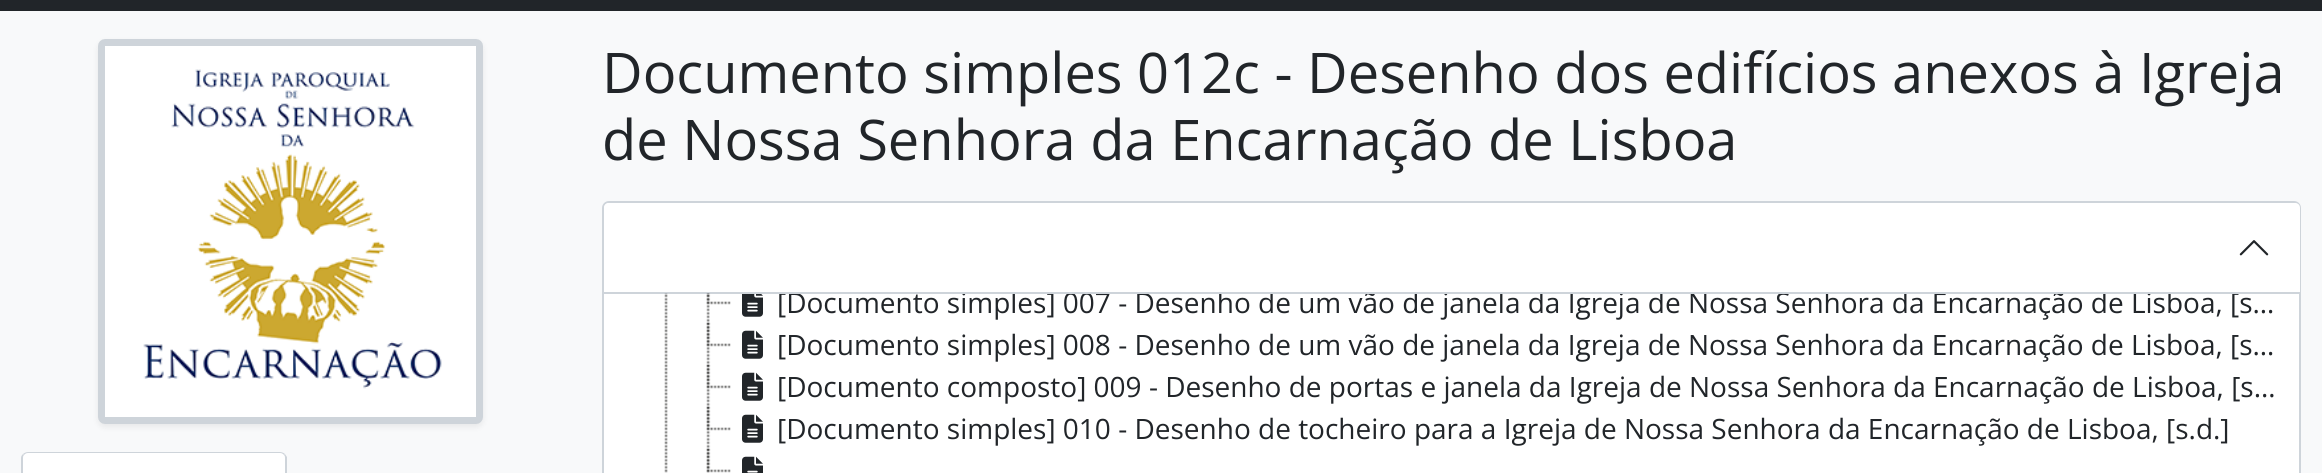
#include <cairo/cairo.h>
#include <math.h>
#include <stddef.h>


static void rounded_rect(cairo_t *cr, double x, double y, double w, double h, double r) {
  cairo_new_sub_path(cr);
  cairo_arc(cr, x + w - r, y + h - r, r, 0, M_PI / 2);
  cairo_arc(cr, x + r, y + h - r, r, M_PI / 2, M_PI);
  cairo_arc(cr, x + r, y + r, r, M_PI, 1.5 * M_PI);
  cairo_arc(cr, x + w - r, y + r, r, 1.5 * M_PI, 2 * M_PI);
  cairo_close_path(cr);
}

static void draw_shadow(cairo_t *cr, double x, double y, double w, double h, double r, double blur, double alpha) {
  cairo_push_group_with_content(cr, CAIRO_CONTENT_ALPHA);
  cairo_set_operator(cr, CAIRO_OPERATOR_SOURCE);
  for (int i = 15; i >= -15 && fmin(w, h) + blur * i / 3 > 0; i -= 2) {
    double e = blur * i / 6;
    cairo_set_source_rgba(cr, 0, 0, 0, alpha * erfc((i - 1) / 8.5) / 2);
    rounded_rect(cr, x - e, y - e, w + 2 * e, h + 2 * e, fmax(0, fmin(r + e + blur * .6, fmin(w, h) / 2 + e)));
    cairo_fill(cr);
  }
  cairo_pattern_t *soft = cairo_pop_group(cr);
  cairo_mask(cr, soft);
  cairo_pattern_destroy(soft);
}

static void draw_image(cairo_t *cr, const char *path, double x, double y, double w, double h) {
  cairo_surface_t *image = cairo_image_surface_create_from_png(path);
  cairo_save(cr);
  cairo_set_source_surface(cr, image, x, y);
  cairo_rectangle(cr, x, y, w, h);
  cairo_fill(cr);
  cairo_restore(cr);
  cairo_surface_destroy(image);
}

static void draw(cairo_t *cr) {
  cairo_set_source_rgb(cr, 248 / 255.0, 249 / 255.0, 250 / 255.0);
  cairo_paint(cr);
  cairo_set_source_rgb(cr, 33 / 255.0, 37 / 255.0, 41 / 255.0);
  cairo_rectangle(cr, 0, 0, 2322, 11);
  cairo_fill(cr);
  cairo_set_source_rgb(cr, 0, 0, 0);
  draw_shadow(cr, 98, 42, 385, 385, 7, 3.5, 0.07);
  cairo_set_source_rgb(cr, 1, 1, 1);
  rounded_rect(cr, 101.5, 42.5, 378, 378, 3.5);
  cairo_fill_preserve(cr);
  cairo_set_source_rgb(cr, 206 / 255.0, 212 / 255.0, 218 / 255.0);
  cairo_set_line_width(cr, 7);
  cairo_stroke(cr);
  draw_image(cr, "images/1.png", 143, 69, 299, 320);
  cairo_set_source_rgb(cr, 1, 1, 1);
  cairo_new_path(cr);
  cairo_move_to(cr, 28, 452);
  cairo_line_to(cr, 280, 452);
  cairo_curve_to(cr, 284, 452, 287, 455, 287, 459);
  cairo_line_to(cr, 287, 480);
  cairo_line_to(cr, 21, 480);
  cairo_line_to(cr, 21, 459);
  cairo_curve_to(cr, 21, 455, 24, 452, 28, 452);
  cairo_close_path(cr);
  cairo_fill(cr);
  cairo_set_source_rgb(cr, 206 / 255.0, 212 / 255.0, 218 / 255.0);
  cairo_new_path(cr);
  cairo_move_to(cr, 28, 452);
  cairo_curve_to(cr, 26, 452, 24, 453, 23, 454);
  cairo_line_to(cr, 24, 455);
  cairo_curve_to(cr, 25, 454, 26, 453, 28, 453);
  cairo_line_to(cr, 280, 453);
  cairo_curve_to(cr, 282, 453, 283, 454, 284, 455);
  cairo_line_to(cr, 285, 454);
  cairo_curve_to(cr, 284, 453, 282, 452, 280, 452);
  cairo_close_path(cr);
  cairo_fill(cr);
  cairo_new_path(cr);
  cairo_move_to(cr, 285, 454);
  cairo_line_to(cr, 287, 457);
  cairo_line_to(cr, 287, 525);
  cairo_line_to(cr, 285, 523);
  cairo_line_to(cr, 285, 458);
  cairo_curve_to(cr, 285, 457, 285, 456, 284, 455);
  cairo_close_path(cr);
  cairo_fill(cr);
  cairo_new_path(cr);
  cairo_move_to(cr, 21, 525);
  cairo_line_to(cr, 23, 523);
  cairo_line_to(cr, 23, 458);
  cairo_curve_to(cr, 23, 457, 23, 456, 24, 455);
  cairo_line_to(cr, 23, 454);
  cairo_curve_to(cr, 22, 455, 21, 456, 21, 458);
  cairo_close_path(cr);
  cairo_fill(cr);
  cairo_set_source_rgb(cr, 1, 1, 1);
  rounded_rect(cr, 603, 202, 1697, 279, 6);
  cairo_fill_preserve(cr);
  cairo_set_source_rgb(cr, 206 / 255.0, 212 / 255.0, 218 / 255.0);
  cairo_set_line_width(cr, 2);
  cairo_stroke(cr);
  cairo_set_source_rgb(cr, 1, 1, 1);
  cairo_new_path(cr);
  cairo_move_to(cr, 609, 203);
  cairo_line_to(cr, 2295, 203);
  cairo_curve_to(cr, 2298, 203, 2300, 205, 2300, 208);
  cairo_line_to(cr, 2300, 294);
  cairo_line_to(cr, 604, 294);
  cairo_line_to(cr, 604, 208);
  cairo_curve_to(cr, 604, 205, 606, 203, 609, 203);
  cairo_close_path(cr);
  cairo_fill(cr);
  cairo_set_source_rgb(cr, 206 / 255.0, 212 / 255.0, 218 / 255.0);
  cairo_rectangle(cr, 604, 292, 1696, 2);
  cairo_fill(cr);
  draw_image(cr, "images/2.png", 2239, 240, 30, 16);
  draw_image(cr, "images/3.png", 664, 293, 4, 180);
  draw_image(cr, "images/4.png", 706, 293, 4, 30);
  draw_image(cr, "images/5.png", 706, 293, 25, 12);
  draw_image(cr, "images/6.png", 742, 294, 21, 23);
  draw_image(cr, "images/7.png", 706, 322, 5, 43);
  draw_image(cr, "images/8.png", 706, 322, 25, 25);
  draw_image(cr, "images/9.png", 742, 330, 21, 29);
  draw_image(cr, "images/7.png", 706, 364, 5, 43);
  draw_image(cr, "images/8.png", 706, 364, 25, 25);
  draw_image(cr, "images/9.png", 742, 372, 21, 29);
  draw_image(cr, "images/7.png", 706, 406, 5, 43);
  draw_image(cr, "images/8.png", 706, 406, 25, 25);
  draw_image(cr, "images/9.png", 742, 414, 21, 29);
  draw_image(cr, "images/10.png", 706, 448, 5, 25);
  draw_image(cr, "images/8.png", 706, 448, 25, 25);
  draw_image(cr, "images/11.png", 742, 456, 21, 17);
  cairo_select_font_face(cr, "Open Sans", CAIRO_FONT_SLANT_NORMAL, CAIRO_FONT_WEIGHT_NORMAL);
  cairo_set_font_size(cr, 56);
  cairo_set_source_rgb(cr, 33 / 255.0, 37 / 255.0, 41 / 255.0);
  cairo_move_to(cr, 602, 93);
  cairo_show_text(cr, "Documento simples 012c - Desenho dos edifícios anexos à Igreja");
  cairo_move_to(cr, 602, 160);
  cairo_show_text(cr, "de Nossa Senhora da Encarnação de Lisboa");
  cairo_save(cr);
  cairo_rectangle(cr, 730, 294, 1556, 30);
  cairo_clip(cr);
  cairo_set_font_size(cr, 28);
  cairo_move_to(cr, 777, 313);
  cairo_show_text(cr, "[Documento simples] 007 - Desenho de um vão de janela da Igreja de Nossa Senhora da Encarnação de Lisboa, [s…");
  cairo_restore(cr);
  cairo_set_font_size(cr, 28);
  cairo_move_to(cr, 777, 355);
  cairo_show_text(cr, "[Documento simples] 008 - Desenho de um vão de janela da Igreja de Nossa Senhora da Encarnação de Lisboa, [s…");
  cairo_move_to(cr, 777, 397);
  cairo_show_text(cr, "[Documento composto] 009 - Desenho de portas e janela da Igreja de Nossa Senhora da Encarnação de Lisboa, [s…");
  cairo_move_to(cr, 777, 439);
  cairo_show_text(cr, "[Documento simples] 010 - Desenho de tocheiro para a Igreja de Nossa Senhora da Encarnação de Lisboa, [s.d.]");
}

int main(void) {
  cairo_surface_t *surface = cairo_image_surface_create(CAIRO_FORMAT_RGB24, 2322, 473);
  cairo_t *cr = cairo_create(surface);
  cairo_font_options_t *options = cairo_font_options_create();
  cairo_font_options_set_hint_metrics(options, CAIRO_HINT_METRICS_OFF);
  cairo_font_options_set_hint_style(options, CAIRO_HINT_STYLE_NONE);
  cairo_set_font_options(cr, options);
  cairo_set_miter_limit(cr, 4);
  draw(cr);
  cairo_surface_write_to_png(surface, "out.png");
  cairo_font_options_destroy(options);
  cairo_destroy(cr);
  cairo_surface_destroy(surface);
  return 0;
}
